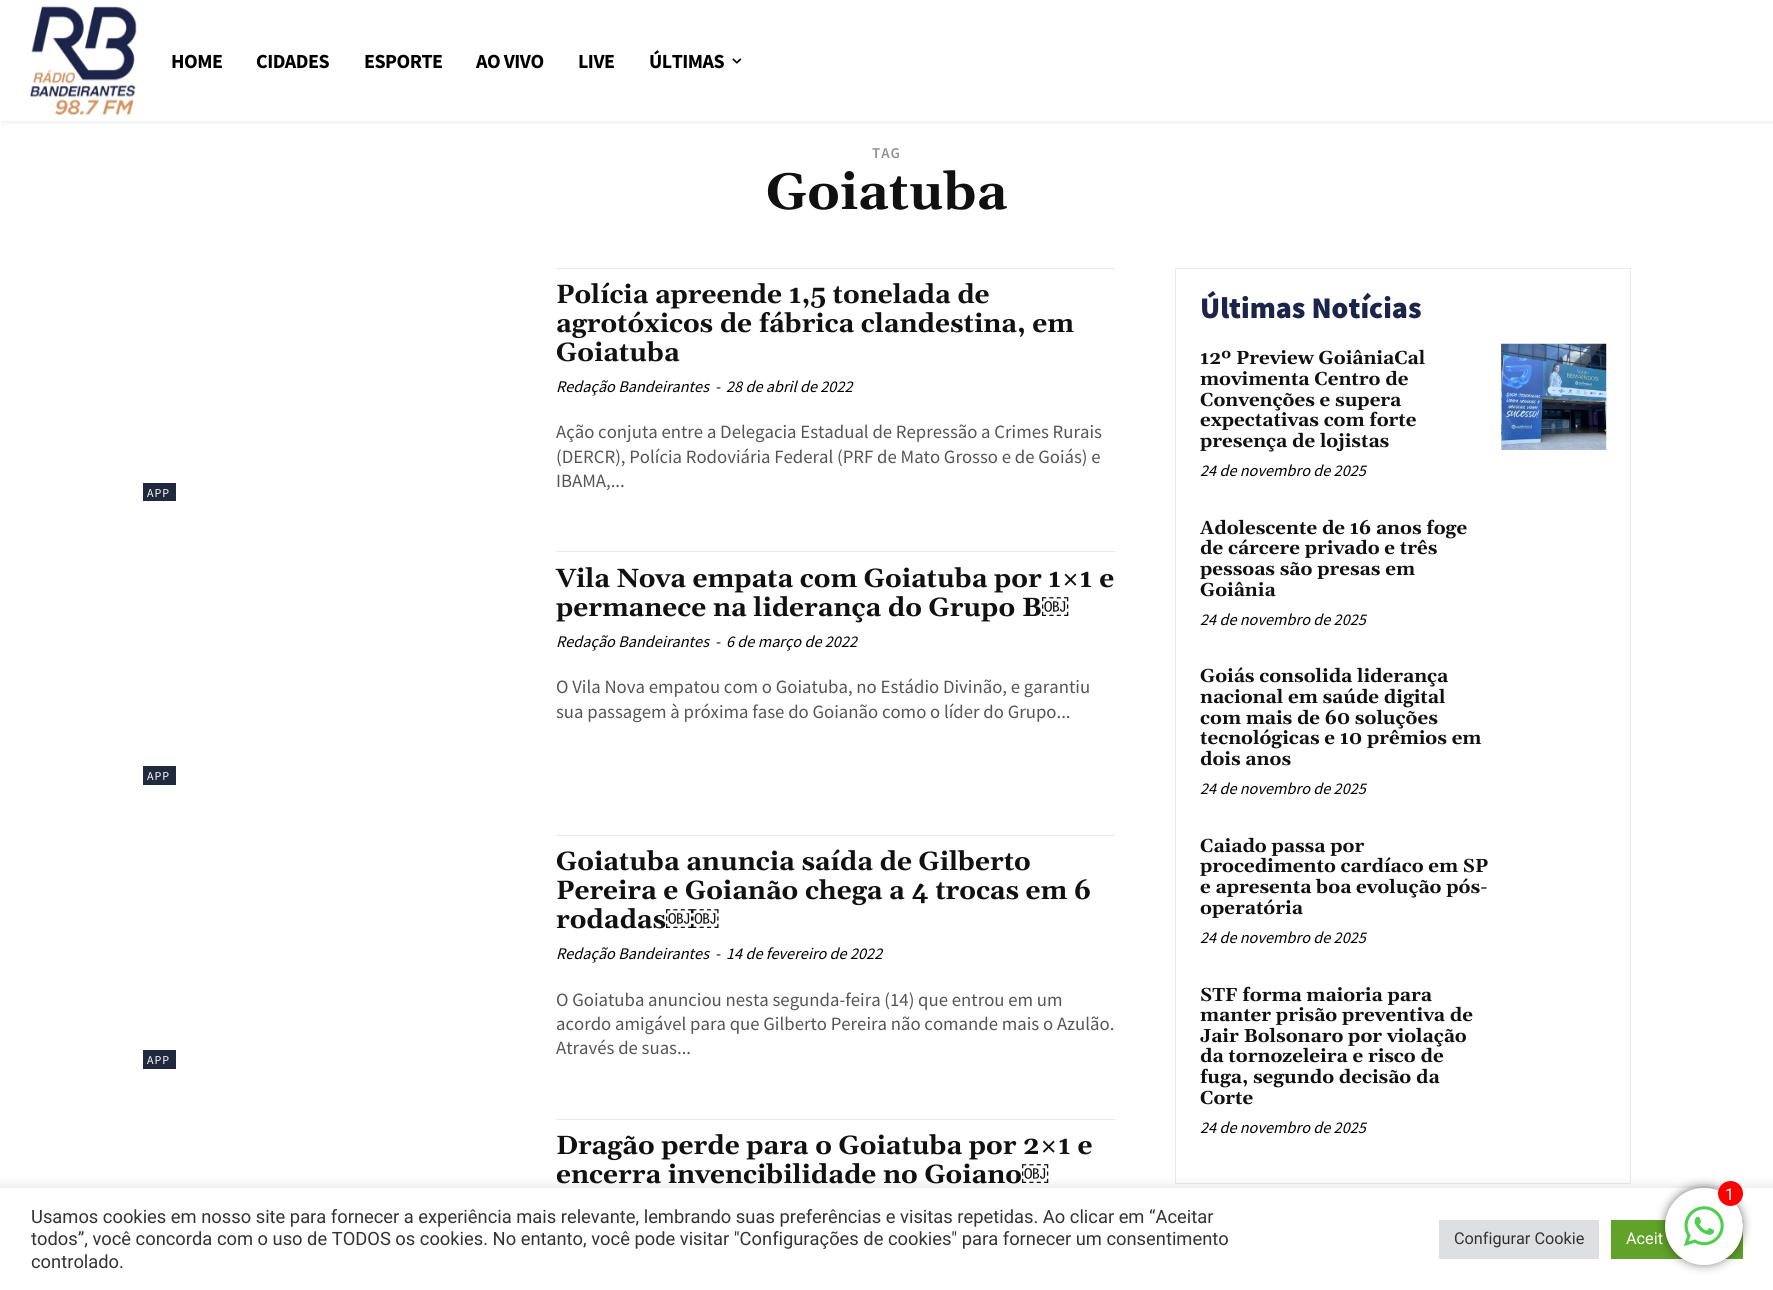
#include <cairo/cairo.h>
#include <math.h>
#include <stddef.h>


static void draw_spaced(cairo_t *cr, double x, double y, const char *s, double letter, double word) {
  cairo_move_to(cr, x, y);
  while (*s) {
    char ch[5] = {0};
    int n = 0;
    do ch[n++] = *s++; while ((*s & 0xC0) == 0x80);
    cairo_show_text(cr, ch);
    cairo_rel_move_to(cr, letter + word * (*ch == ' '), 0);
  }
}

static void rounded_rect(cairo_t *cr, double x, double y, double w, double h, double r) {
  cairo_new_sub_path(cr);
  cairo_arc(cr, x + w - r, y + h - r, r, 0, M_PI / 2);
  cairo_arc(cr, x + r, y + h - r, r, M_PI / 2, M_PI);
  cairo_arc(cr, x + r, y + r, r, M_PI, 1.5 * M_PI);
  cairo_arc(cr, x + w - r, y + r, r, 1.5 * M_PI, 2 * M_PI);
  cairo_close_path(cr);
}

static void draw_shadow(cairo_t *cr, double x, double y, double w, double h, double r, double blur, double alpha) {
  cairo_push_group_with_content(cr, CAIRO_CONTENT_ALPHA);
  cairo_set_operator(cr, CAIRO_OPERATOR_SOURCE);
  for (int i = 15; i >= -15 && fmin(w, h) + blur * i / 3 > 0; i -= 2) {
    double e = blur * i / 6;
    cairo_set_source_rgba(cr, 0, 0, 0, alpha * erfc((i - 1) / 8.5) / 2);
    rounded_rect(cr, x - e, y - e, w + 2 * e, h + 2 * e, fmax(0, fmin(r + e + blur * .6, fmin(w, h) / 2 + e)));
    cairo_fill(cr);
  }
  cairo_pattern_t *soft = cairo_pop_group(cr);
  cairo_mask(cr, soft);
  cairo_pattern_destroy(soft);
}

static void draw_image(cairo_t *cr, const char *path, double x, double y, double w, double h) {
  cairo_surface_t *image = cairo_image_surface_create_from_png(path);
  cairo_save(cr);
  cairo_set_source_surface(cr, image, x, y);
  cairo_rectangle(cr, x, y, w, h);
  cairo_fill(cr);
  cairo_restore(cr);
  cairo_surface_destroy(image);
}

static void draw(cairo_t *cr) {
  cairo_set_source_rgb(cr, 1, 1, 1);
  cairo_paint(cr);
  draw_image(cr, "images/1.png", 30, 6, 107, 110);
  cairo_save(cr);
  cairo_rectangle(cr, 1, 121, 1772, 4);
  cairo_clip(cr);
  cairo_set_source_rgb(cr, 0, 0, 0);
  draw_shadow(cr, 1, 3, 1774, 121, 0, 2.5, 0.06);
  cairo_restore(cr);
  draw_image(cr, "images/2.png", 732, 58, 10, 6);
  cairo_set_source_rgb(cr, 234 / 255.0, 234 / 255.0, 234 / 255.0);
  cairo_rectangle(cr, 556, 268, 559, 1);
  cairo_fill(cr);
  cairo_set_source_rgb(cr, 33 / 255.0, 41 / 255.0, 62 / 255.0);
  cairo_rectangle(cr, 143, 483, 33, 18);
  cairo_fill(cr);
  cairo_set_source_rgb(cr, 234 / 255.0, 234 / 255.0, 234 / 255.0);
  cairo_rectangle(cr, 556, 551, 559, 1);
  cairo_fill(cr);
  cairo_set_source_rgb(cr, 33 / 255.0, 41 / 255.0, 62 / 255.0);
  cairo_rectangle(cr, 143, 766, 33, 19);
  cairo_fill(cr);
  cairo_set_source_rgb(cr, 234 / 255.0, 234 / 255.0, 234 / 255.0);
  cairo_rectangle(cr, 556, 835, 559, 1);
  cairo_fill(cr);
  cairo_set_source_rgb(cr, 33 / 255.0, 41 / 255.0, 62 / 255.0);
  cairo_rectangle(cr, 143, 1050, 33, 19);
  cairo_fill(cr);
  cairo_set_source_rgb(cr, 234 / 255.0, 234 / 255.0, 234 / 255.0);
  cairo_rectangle(cr, 556, 1119, 559, 1);
  cairo_fill(cr);
  cairo_rectangle(cr, 1175.5, 268.5, 455, 915);
  cairo_set_line_width(cr, 1);
  cairo_stroke(cr);
  draw_image(cr, "images/3.png", 1501, 343, 106, 107);
  cairo_set_source_rgb(cr, 172 / 255.0, 171 / 255.0, 171 / 255.0);
  draw_shadow(cr, 0, 1186, 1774, 103, 0, 6, 0.3);
  cairo_set_source_rgb(cr, 1, 1, 1);
  cairo_rectangle(cr, 0, 1188, 1773, 102);
  cairo_fill(cr);
  cairo_set_source_rgb(cr, 97 / 255.0, 162 / 255.0, 41 / 255.0);
  cairo_rectangle(cr, 1611, 1220, 132, 39);
  cairo_fill(cr);
  cairo_set_source_rgb(cr, 0, 0, 0);
  draw_shadow(cr, 1669, 1191, 70, 70, 35, 6, 1);
  cairo_set_source_rgb(cr, 1, 1, 1);
  rounded_rect(cr, 1665, 1188, 78, 77, 38.5);
  cairo_fill(cr);
  cairo_set_source_rgb(cr, 1, 0, 0);
  cairo_arc(cr, 1730.5, 1193.5, 12.5, 0, 2 * M_PI);
  cairo_fill(cr);
  draw_image(cr, "images/4.png", 1684, 1206, 40, 40);
  cairo_set_source_rgb(cr, 222 / 255.0, 223 / 255.0, 224 / 255.0);
  cairo_rectangle(cr, 1439, 1220, 160, 39);
  cairo_fill(cr);
  cairo_select_font_face(cr, "Source Sans Pro", CAIRO_FONT_SLANT_NORMAL, CAIRO_FONT_WEIGHT_BOLD);
  cairo_set_font_size(cr, 20);
  cairo_set_source_rgb(cr, 0, 0, 0);
  draw_spaced(cr, 171, 68, "HOME", -0.5, 0);
  draw_spaced(cr, 256, 68, "CIDADES", -0.5, 0);
  draw_spaced(cr, 364, 68, "ESPORTE", -0.5, 0);
  draw_spaced(cr, 476, 68, "AO VIVO", -0.5, 0);
  draw_spaced(cr, 578, 68, "LIVE", -0.5, 0);
  draw_spaced(cr, 649, 68, "ÚLTIMAS", -0.5, 0);
  cairo_select_font_face(cr, "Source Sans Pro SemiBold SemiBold", CAIRO_FONT_SLANT_NORMAL, CAIRO_FONT_WEIGHT_NORMAL);
  cairo_set_font_size(cr, 15);
  cairo_set_source_rgb(cr, 145 / 255.0, 145 / 255.0, 145 / 255.0);
  draw_spaced(cr, 872, 158, "TAG", 1, 0);
  cairo_select_font_face(cr, "Gelasio", CAIRO_FONT_SLANT_NORMAL, CAIRO_FONT_WEIGHT_BOLD);
  cairo_set_font_size(cr, 51.25);
  cairo_set_source_rgb(cr, 17 / 255.0, 17 / 255.0, 17 / 255.0);
  cairo_move_to(cr, 766, 209);
  cairo_show_text(cr, "Goiatuba");
  cairo_set_font_size(cr, 26.25);
  cairo_move_to(cr, 556, 303);
  cairo_show_text(cr, "Polícia apreende 1,5 tonelada de");
  cairo_move_to(cr, 556, 332);
  cairo_show_text(cr, "agrotóxicos de fábrica clandestina, em");
  cairo_move_to(cr, 556, 361);
  cairo_show_text(cr, "Goiatuba");
  cairo_select_font_face(cr, "Source Sans Pro", CAIRO_FONT_SLANT_ITALIC, CAIRO_FONT_WEIGHT_NORMAL);
  cairo_set_font_size(cr, 16.25);
  cairo_set_source_rgb(cr, 0, 0, 0);
  cairo_move_to(cr, 556, 392);
  cairo_show_text(cr, "Redação Bandeirantes");
  cairo_move_to(cr, 715, 392);
  cairo_show_text(cr, "-");
  cairo_move_to(cr, 726, 392);
  cairo_show_text(cr, "28 de abril de 2022");
  cairo_select_font_face(cr, "Source Sans Pro", CAIRO_FONT_SLANT_NORMAL, CAIRO_FONT_WEIGHT_NORMAL);
  cairo_set_font_size(cr, 18.75);
  cairo_set_source_rgb(cr, 85 / 255.0, 85 / 255.0, 85 / 255.0);
  cairo_move_to(cr, 556, 438);
  cairo_show_text(cr, "Ação conjuta entre a Delegacia Estadual de Repressão a Crimes Rurais");
  cairo_move_to(cr, 556, 463);
  cairo_show_text(cr, "(DERCR), Polícia Rodoviária Federal (PRF de Mato Grosso e de Goiás) e");
  cairo_move_to(cr, 556, 487);
  cairo_show_text(cr, "IBAMA,...");
  cairo_set_font_size(cr, 12);
  cairo_set_source_rgb(cr, 1, 1, 1);
  draw_spaced(cr, 147, 497, "APP", 1, 0);
  cairo_select_font_face(cr, "Gelasio", CAIRO_FONT_SLANT_NORMAL, CAIRO_FONT_WEIGHT_BOLD);
  cairo_set_font_size(cr, 26.25);
  cairo_set_source_rgb(cr, 17 / 255.0, 17 / 255.0, 17 / 255.0);
  cairo_move_to(cr, 556, 587);
  cairo_show_text(cr, "Vila Nova empata com Goiatuba por 1×1 e");
  cairo_move_to(cr, 556, 616);
  cairo_show_text(cr, "permanece na liderança do Grupo B");
  cairo_select_font_face(cr, "Liberation Serif", CAIRO_FONT_SLANT_NORMAL, CAIRO_FONT_WEIGHT_BOLD);
  cairo_move_to(cr, 1042, 616);
  cairo_show_text(cr, "￼");
  cairo_select_font_face(cr, "Source Sans Pro", CAIRO_FONT_SLANT_ITALIC, CAIRO_FONT_WEIGHT_NORMAL);
  cairo_set_font_size(cr, 16.25);
  cairo_set_source_rgb(cr, 0, 0, 0);
  cairo_move_to(cr, 556, 647);
  cairo_show_text(cr, "Redação Bandeirantes");
  cairo_move_to(cr, 715, 647);
  cairo_show_text(cr, "-");
  cairo_move_to(cr, 726, 647);
  cairo_show_text(cr, "6 de março de 2022");
  cairo_select_font_face(cr, "Source Sans Pro", CAIRO_FONT_SLANT_NORMAL, CAIRO_FONT_WEIGHT_NORMAL);
  cairo_set_font_size(cr, 18.75);
  cairo_set_source_rgb(cr, 85 / 255.0, 85 / 255.0, 85 / 255.0);
  cairo_move_to(cr, 556, 693);
  cairo_show_text(cr, "O Vila Nova empatou com o Goiatuba, no Estádio Divinão, e garantiu");
  cairo_move_to(cr, 556, 718);
  cairo_show_text(cr, "sua passagem à próxima fase do Goianão como o líder do Grupo...");
  cairo_set_font_size(cr, 12);
  cairo_set_source_rgb(cr, 1, 1, 1);
  draw_spaced(cr, 147, 780, "APP", 1, 0);
  cairo_select_font_face(cr, "Gelasio", CAIRO_FONT_SLANT_NORMAL, CAIRO_FONT_WEIGHT_BOLD);
  cairo_set_font_size(cr, 26.25);
  cairo_set_source_rgb(cr, 17 / 255.0, 17 / 255.0, 17 / 255.0);
  cairo_move_to(cr, 556, 870);
  cairo_show_text(cr, "Goiatuba anuncia saída de Gilberto");
  cairo_move_to(cr, 556, 899);
  cairo_show_text(cr, "Pereira e Goianão chega a 4 trocas em 6");
  cairo_move_to(cr, 556, 928);
  cairo_show_text(cr, "rodadas");
  cairo_select_font_face(cr, "Liberation Serif", CAIRO_FONT_SLANT_NORMAL, CAIRO_FONT_WEIGHT_BOLD);
  cairo_move_to(cr, 666, 928);
  cairo_show_text(cr, "￼￼");
  cairo_select_font_face(cr, "Source Sans Pro", CAIRO_FONT_SLANT_ITALIC, CAIRO_FONT_WEIGHT_NORMAL);
  cairo_set_font_size(cr, 16.25);
  cairo_set_source_rgb(cr, 0, 0, 0);
  cairo_move_to(cr, 556, 959);
  cairo_show_text(cr, "Redação Bandeirantes");
  cairo_move_to(cr, 715, 959);
  cairo_show_text(cr, "-");
  cairo_move_to(cr, 726, 959);
  cairo_show_text(cr, "14 de fevereiro de 2022");
  cairo_select_font_face(cr, "Source Sans Pro", CAIRO_FONT_SLANT_NORMAL, CAIRO_FONT_WEIGHT_NORMAL);
  cairo_set_font_size(cr, 18.75);
  cairo_set_source_rgb(cr, 85 / 255.0, 85 / 255.0, 85 / 255.0);
  cairo_move_to(cr, 556, 1006);
  cairo_show_text(cr, "O Goiatuba anunciou nesta segunda-feira (14) que entrou em um");
  cairo_move_to(cr, 556, 1030);
  cairo_show_text(cr, "acordo amigável para que Gilberto Pereira não comande mais o Azulão.");
  cairo_move_to(cr, 556, 1054);
  cairo_show_text(cr, "Através de suas...");
  cairo_set_font_size(cr, 12);
  cairo_set_source_rgb(cr, 1, 1, 1);
  draw_spaced(cr, 147, 1064, "APP", 1, 0);
  cairo_select_font_face(cr, "Gelasio", CAIRO_FONT_SLANT_NORMAL, CAIRO_FONT_WEIGHT_BOLD);
  cairo_set_font_size(cr, 26.25);
  cairo_set_source_rgb(cr, 17 / 255.0, 17 / 255.0, 17 / 255.0);
  cairo_move_to(cr, 556, 1154);
  cairo_show_text(cr, "Dragão perde para o Goiatuba por 2×1 e");
  cairo_move_to(cr, 556, 1183);
  cairo_show_text(cr, "encerra invencibilidade no Goiano");
  cairo_select_font_face(cr, "Liberation Serif", CAIRO_FONT_SLANT_NORMAL, CAIRO_FONT_WEIGHT_BOLD);
  cairo_move_to(cr, 1022, 1183);
  cairo_show_text(cr, "￼");
  cairo_select_font_face(cr, "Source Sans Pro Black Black", CAIRO_FONT_SLANT_NORMAL, CAIRO_FONT_WEIGHT_NORMAL);
  cairo_set_font_size(cr, 30);
  cairo_set_source_rgb(cr, 29 / 255.0, 36 / 255.0, 74 / 255.0);
  cairo_move_to(cr, 1200, 318);
  cairo_show_text(cr, "Últimas Notícias");
  cairo_select_font_face(cr, "Gelasio", CAIRO_FONT_SLANT_NORMAL, CAIRO_FONT_WEIGHT_BOLD);
  cairo_set_font_size(cr, 18.75);
  cairo_set_source_rgb(cr, 17 / 255.0, 17 / 255.0, 17 / 255.0);
  cairo_move_to(cr, 1200, 364);
  cairo_show_text(cr, "12º Preview GoiâniaCal");
  cairo_move_to(cr, 1200, 385);
  cairo_show_text(cr, "movimenta Centro de");
  cairo_move_to(cr, 1200, 406);
  cairo_show_text(cr, "Convenções e supera");
  cairo_move_to(cr, 1200, 426);
  cairo_show_text(cr, "expectativas com forte");
  cairo_move_to(cr, 1200, 447);
  cairo_show_text(cr, "presença de lojistas");
  cairo_select_font_face(cr, "Source Sans Pro", CAIRO_FONT_SLANT_ITALIC, CAIRO_FONT_WEIGHT_NORMAL);
  cairo_set_font_size(cr, 16.25);
  cairo_set_source_rgb(cr, 0, 0, 0);
  cairo_move_to(cr, 1200, 476);
  cairo_show_text(cr, "24 de novembro de 2025");
  cairo_select_font_face(cr, "Gelasio", CAIRO_FONT_SLANT_NORMAL, CAIRO_FONT_WEIGHT_BOLD);
  cairo_set_font_size(cr, 18.75);
  cairo_set_source_rgb(cr, 17 / 255.0, 17 / 255.0, 17 / 255.0);
  cairo_move_to(cr, 1200, 534);
  cairo_show_text(cr, "Adolescente de 16 anos foge");
  cairo_move_to(cr, 1200, 554);
  cairo_show_text(cr, "de cárcere privado e três");
  cairo_move_to(cr, 1200, 575);
  cairo_show_text(cr, "pessoas são presas em");
  cairo_move_to(cr, 1200, 596);
  cairo_show_text(cr, "Goiânia");
  cairo_select_font_face(cr, "Source Sans Pro", CAIRO_FONT_SLANT_ITALIC, CAIRO_FONT_WEIGHT_NORMAL);
  cairo_set_font_size(cr, 16.25);
  cairo_set_source_rgb(cr, 0, 0, 0);
  cairo_move_to(cr, 1200, 625);
  cairo_show_text(cr, "24 de novembro de 2025");
  cairo_select_font_face(cr, "Gelasio", CAIRO_FONT_SLANT_NORMAL, CAIRO_FONT_WEIGHT_BOLD);
  cairo_set_font_size(cr, 18.75);
  cairo_set_source_rgb(cr, 17 / 255.0, 17 / 255.0, 17 / 255.0);
  cairo_move_to(cr, 1200, 682);
  cairo_show_text(cr, "Goiás consolida liderança");
  cairo_move_to(cr, 1200, 703);
  cairo_show_text(cr, "nacional em saúde digital");
  cairo_move_to(cr, 1200, 724);
  cairo_show_text(cr, "com mais de 60 soluções");
  cairo_move_to(cr, 1200, 744);
  cairo_show_text(cr, "tecnológicas e 10 prêmios em");
  cairo_move_to(cr, 1200, 765);
  cairo_show_text(cr, "dois anos");
  cairo_select_font_face(cr, "Source Sans Pro", CAIRO_FONT_SLANT_ITALIC, CAIRO_FONT_WEIGHT_NORMAL);
  cairo_set_font_size(cr, 16.25);
  cairo_set_source_rgb(cr, 0, 0, 0);
  cairo_move_to(cr, 1200, 794);
  cairo_show_text(cr, "24 de novembro de 2025");
  cairo_select_font_face(cr, "Gelasio", CAIRO_FONT_SLANT_NORMAL, CAIRO_FONT_WEIGHT_BOLD);
  cairo_set_font_size(cr, 18.75);
  cairo_set_source_rgb(cr, 17 / 255.0, 17 / 255.0, 17 / 255.0);
  cairo_move_to(cr, 1200, 852);
  cairo_show_text(cr, "Caiado passa por");
  cairo_move_to(cr, 1200, 872);
  cairo_show_text(cr, "procedimento cardíaco em SP");
  cairo_move_to(cr, 1200, 893);
  cairo_show_text(cr, "e apresenta boa evolução pós-");
  cairo_move_to(cr, 1200, 914);
  cairo_show_text(cr, "operatória");
  cairo_select_font_face(cr, "Source Sans Pro", CAIRO_FONT_SLANT_ITALIC, CAIRO_FONT_WEIGHT_NORMAL);
  cairo_set_font_size(cr, 16.25);
  cairo_set_source_rgb(cr, 0, 0, 0);
  cairo_move_to(cr, 1200, 943);
  cairo_show_text(cr, "24 de novembro de 2025");
  cairo_select_font_face(cr, "Gelasio", CAIRO_FONT_SLANT_NORMAL, CAIRO_FONT_WEIGHT_BOLD);
  cairo_set_font_size(cr, 18.75);
  cairo_set_source_rgb(cr, 17 / 255.0, 17 / 255.0, 17 / 255.0);
  cairo_move_to(cr, 1200, 1001);
  cairo_show_text(cr, "STF forma maioria para");
  cairo_move_to(cr, 1200, 1021);
  cairo_show_text(cr, "manter prisão preventiva de");
  cairo_move_to(cr, 1200, 1042);
  cairo_show_text(cr, "Jair Bolsonaro por violação");
  cairo_move_to(cr, 1200, 1062);
  cairo_show_text(cr, "da tornozeleira e risco de");
  cairo_move_to(cr, 1200, 1083);
  cairo_show_text(cr, "fuga, segundo decisão da");
  cairo_move_to(cr, 1200, 1104);
  cairo_show_text(cr, "Corte");
  cairo_select_font_face(cr, "Source Sans Pro", CAIRO_FONT_SLANT_ITALIC, CAIRO_FONT_WEIGHT_NORMAL);
  cairo_set_font_size(cr, 16.25);
  cairo_set_source_rgb(cr, 0, 0, 0);
  cairo_move_to(cr, 1200, 1133);
  cairo_show_text(cr, "24 de novembro de 2025");
  cairo_select_font_face(cr, "Roboto", CAIRO_FONT_SLANT_NORMAL, CAIRO_FONT_WEIGHT_NORMAL);
  cairo_set_source_rgb(cr, 1, 1, 1);
  cairo_move_to(cr, 1725, 1200);
  cairo_show_text(cr, "1");
  cairo_set_font_size(cr, 18.33);
  cairo_set_source_rgb(cr, 51 / 255.0, 51 / 255.0, 51 / 255.0);
  cairo_move_to(cr, 31, 1223);
  cairo_show_text(cr, "Usamos cookies em nosso site para fornecer a experiência mais relevante, lembrando suas preferências e visitas repetidas. Ao clicar em “Aceitar");
  cairo_move_to(cr, 31, 1245);
  cairo_show_text(cr, "todos”, você concorda com o uso de TODOS os cookies. No entanto, você pode visitar \"Configurações de cookies\" para fornecer um consentimento");
  cairo_move_to(cr, 31, 1268);
  cairo_show_text(cr, "controlado.");
  cairo_set_font_size(cr, 16.25);
  cairo_move_to(cr, 1454, 1244);
  cairo_show_text(cr, "Configurar Cookie");
  cairo_set_source_rgb(cr, 1, 1, 1);
  cairo_move_to(cr, 1626, 1244);
  cairo_show_text(cr, "Aceit");
}

int main(void) {
  cairo_surface_t *surface = cairo_image_surface_create(CAIRO_FORMAT_RGB24, 1773, 1290);
  cairo_t *cr = cairo_create(surface);
  cairo_font_options_t *options = cairo_font_options_create();
  cairo_font_options_set_hint_metrics(options, CAIRO_HINT_METRICS_OFF);
  cairo_font_options_set_hint_style(options, CAIRO_HINT_STYLE_NONE);
  cairo_set_font_options(cr, options);
  cairo_set_miter_limit(cr, 4);
  draw(cr);
  cairo_surface_write_to_png(surface, "out.png");
  cairo_font_options_destroy(options);
  cairo_destroy(cr);
  cairo_surface_destroy(surface);
  return 0;
}
